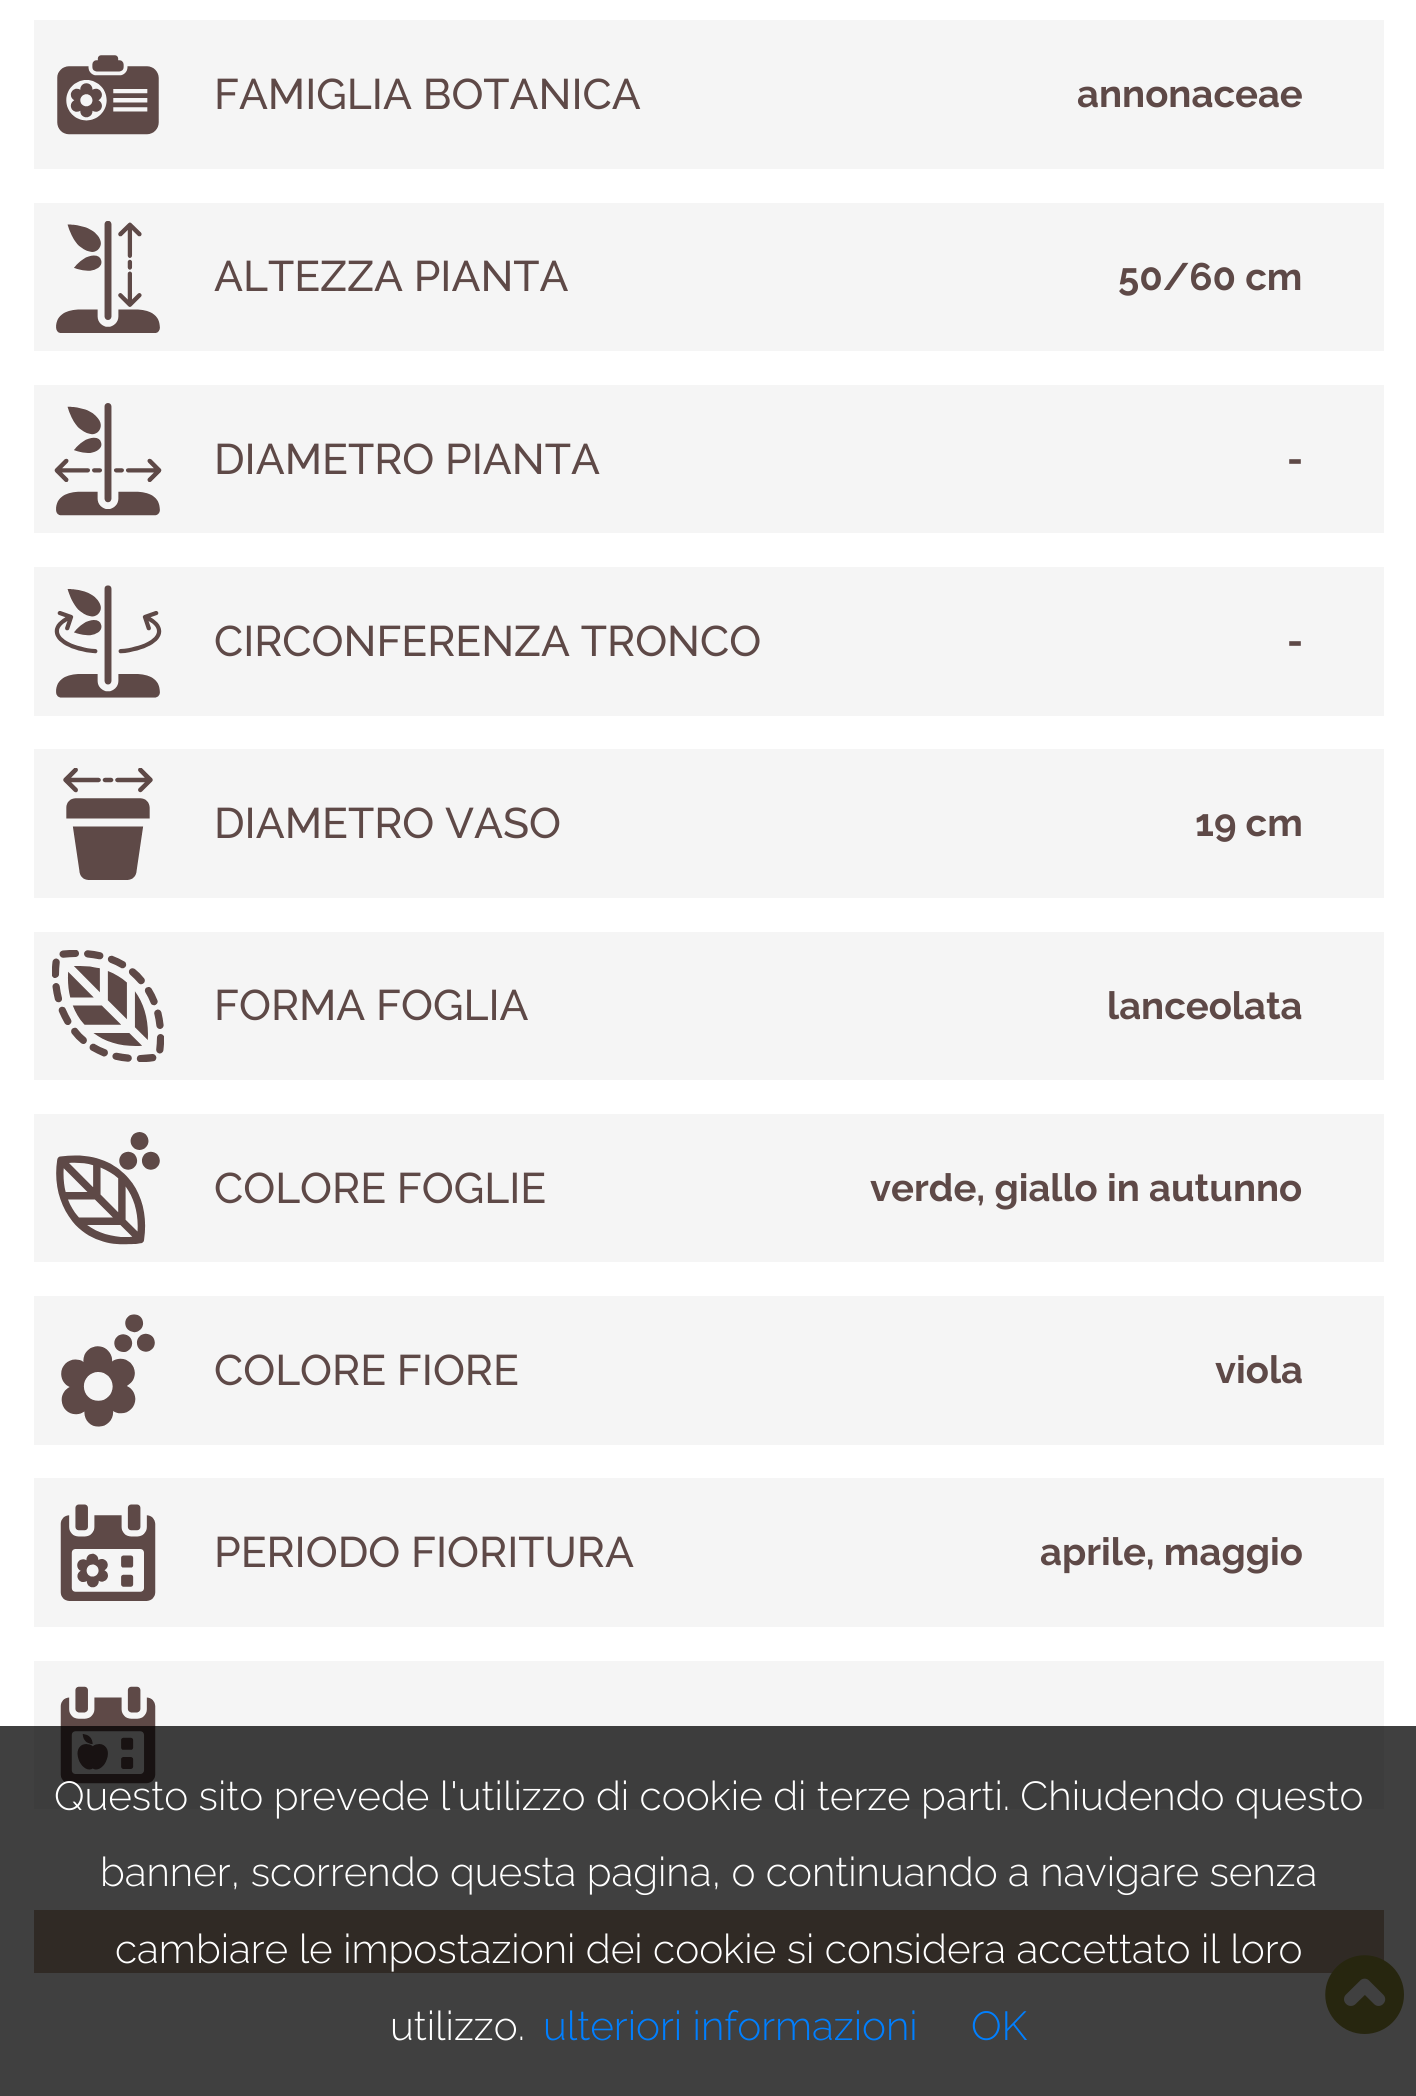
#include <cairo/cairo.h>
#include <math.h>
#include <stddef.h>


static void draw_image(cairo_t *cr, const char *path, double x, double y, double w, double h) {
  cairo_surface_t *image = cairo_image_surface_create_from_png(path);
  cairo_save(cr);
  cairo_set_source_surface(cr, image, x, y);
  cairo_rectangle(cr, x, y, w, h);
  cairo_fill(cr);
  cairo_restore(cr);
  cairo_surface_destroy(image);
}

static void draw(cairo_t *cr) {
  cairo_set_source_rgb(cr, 1, 1, 1);
  cairo_paint(cr);
  cairo_set_source_rgb(cr, 245 / 255.0, 245 / 255.0, 245 / 255.0);
  cairo_rectangle(cr, 34, 20, 1350, 149);
  cairo_fill(cr);
  draw_image(cr, "images/1.png", 57, 55, 102, 80);
  cairo_rectangle(cr, 34, 203, 1350, 148);
  cairo_fill(cr);
  draw_image(cr, "images/2.png", 56, 221, 104, 112);
  cairo_rectangle(cr, 34, 385, 1350, 148);
  cairo_fill(cr);
  draw_image(cr, "images/3.png", 54, 403, 108, 113);
  cairo_rectangle(cr, 34, 567, 1350, 149);
  cairo_fill(cr);
  draw_image(cr, "images/4.png", 54, 585, 108, 113);
  cairo_rectangle(cr, 34, 749, 1350, 149);
  cairo_fill(cr);
  draw_image(cr, "images/5.png", 63, 768, 90, 112);
  cairo_rectangle(cr, 34, 932, 1350, 148);
  cairo_fill(cr);
  draw_image(cr, "images/6.png", 52, 950, 112, 112);
  cairo_rectangle(cr, 34, 1114, 1350, 148);
  cairo_fill(cr);
  draw_image(cr, "images/7.png", 56, 1132, 104, 113);
  cairo_rectangle(cr, 34, 1296, 1350, 149);
  cairo_fill(cr);
  draw_image(cr, "images/8.png", 61, 1314, 94, 113);
  cairo_rectangle(cr, 34, 1478, 1350, 149);
  cairo_fill(cr);
  draw_image(cr, "images/9.png", 60, 1504, 96, 97);
  cairo_rectangle(cr, 34, 1661, 1350, 148);
  cairo_fill(cr);
  draw_image(cr, "images/10.png", 60, 1686, 96, 98);
  cairo_set_source_rgb(cr, 191 / 255.0, 168 / 255.0, 148 / 255.0);
  cairo_rectangle(cr, 34, 1910, 1350, 63);
  cairo_fill(cr);
  draw_image(cr, "images/11.png", 1325, 1955, 79, 79);
  cairo_set_source_rgba(cr, 0, 0, 0, 0.75);
  cairo_rectangle(cr, 0, 1726, 1416, 370);
  cairo_fill(cr);
  cairo_select_font_face(cr, "Raleway Medium", CAIRO_FONT_SLANT_NORMAL, CAIRO_FONT_WEIGHT_NORMAL);
  cairo_set_font_size(cr, 42.75);
  cairo_set_source_rgb(cr, 94 / 255.0, 73 / 255.0, 71 / 255.0);
  cairo_move_to(cr, 214, 109);
  cairo_show_text(cr, "FAMIGLIA BOTANICA");
  cairo_select_font_face(cr, "Raleway", CAIRO_FONT_SLANT_NORMAL, CAIRO_FONT_WEIGHT_BOLD);
  cairo_set_font_size(cr, 38.25);
  cairo_move_to(cr, 1077, 107);
  cairo_show_text(cr, "annonaceae");
  cairo_select_font_face(cr, "Raleway Medium", CAIRO_FONT_SLANT_NORMAL, CAIRO_FONT_WEIGHT_NORMAL);
  cairo_set_font_size(cr, 42.75);
  cairo_move_to(cr, 214, 291);
  cairo_show_text(cr, "ALTEZZA PIANTA");
  cairo_select_font_face(cr, "Raleway", CAIRO_FONT_SLANT_NORMAL, CAIRO_FONT_WEIGHT_BOLD);
  cairo_set_font_size(cr, 38.25);
  cairo_move_to(cr, 1118, 290);
  cairo_show_text(cr, "50/60 cm");
  cairo_select_font_face(cr, "Raleway Medium", CAIRO_FONT_SLANT_NORMAL, CAIRO_FONT_WEIGHT_NORMAL);
  cairo_set_font_size(cr, 42.75);
  cairo_move_to(cr, 214, 474);
  cairo_show_text(cr, "DIAMETRO PIANTA");
  cairo_select_font_face(cr, "Raleway", CAIRO_FONT_SLANT_NORMAL, CAIRO_FONT_WEIGHT_BOLD);
  cairo_set_font_size(cr, 38.25);
  cairo_move_to(cr, 1287, 472);
  cairo_show_text(cr, "-");
  cairo_select_font_face(cr, "Raleway Medium", CAIRO_FONT_SLANT_NORMAL, CAIRO_FONT_WEIGHT_NORMAL);
  cairo_set_font_size(cr, 42.75);
  cairo_move_to(cr, 214, 656);
  cairo_show_text(cr, "CIRCONFERENZA TRONCO");
  cairo_select_font_face(cr, "Raleway", CAIRO_FONT_SLANT_NORMAL, CAIRO_FONT_WEIGHT_BOLD);
  cairo_set_font_size(cr, 38.25);
  cairo_move_to(cr, 1287, 654);
  cairo_show_text(cr, "-");
  cairo_select_font_face(cr, "Raleway Medium", CAIRO_FONT_SLANT_NORMAL, CAIRO_FONT_WEIGHT_NORMAL);
  cairo_set_font_size(cr, 42.75);
  cairo_move_to(cr, 214, 838);
  cairo_show_text(cr, "DIAMETRO VASO");
  cairo_select_font_face(cr, "Raleway", CAIRO_FONT_SLANT_NORMAL, CAIRO_FONT_WEIGHT_BOLD);
  cairo_set_font_size(cr, 38.25);
  cairo_move_to(cr, 1195, 836);
  cairo_show_text(cr, "19 cm");
  cairo_select_font_face(cr, "Raleway Medium", CAIRO_FONT_SLANT_NORMAL, CAIRO_FONT_WEIGHT_NORMAL);
  cairo_set_font_size(cr, 42.75);
  cairo_move_to(cr, 214, 1020);
  cairo_show_text(cr, "FORMA FOGLIA");
  cairo_select_font_face(cr, "Raleway", CAIRO_FONT_SLANT_NORMAL, CAIRO_FONT_WEIGHT_BOLD);
  cairo_set_font_size(cr, 38.25);
  cairo_move_to(cr, 1107, 1019);
  cairo_show_text(cr, "lanceolata");
  cairo_select_font_face(cr, "Raleway Medium", CAIRO_FONT_SLANT_NORMAL, CAIRO_FONT_WEIGHT_NORMAL);
  cairo_set_font_size(cr, 42.75);
  cairo_move_to(cr, 214, 1203);
  cairo_show_text(cr, "COLORE FOGLIE");
  cairo_select_font_face(cr, "Raleway", CAIRO_FONT_SLANT_NORMAL, CAIRO_FONT_WEIGHT_BOLD);
  cairo_set_font_size(cr, 38.25);
  cairo_move_to(cr, 870, 1201);
  cairo_show_text(cr, "verde, giallo in autunno");
  cairo_select_font_face(cr, "Raleway Medium", CAIRO_FONT_SLANT_NORMAL, CAIRO_FONT_WEIGHT_NORMAL);
  cairo_set_font_size(cr, 42.75);
  cairo_move_to(cr, 214, 1385);
  cairo_show_text(cr, "COLORE FIORE");
  cairo_select_font_face(cr, "Raleway", CAIRO_FONT_SLANT_NORMAL, CAIRO_FONT_WEIGHT_BOLD);
  cairo_set_font_size(cr, 38.25);
  cairo_move_to(cr, 1215, 1383);
  cairo_show_text(cr, "viola");
  cairo_select_font_face(cr, "Raleway Medium", CAIRO_FONT_SLANT_NORMAL, CAIRO_FONT_WEIGHT_NORMAL);
  cairo_set_font_size(cr, 42.75);
  cairo_move_to(cr, 214, 1567);
  cairo_show_text(cr, "PERIODO FIORITURA");
  cairo_select_font_face(cr, "Raleway", CAIRO_FONT_SLANT_NORMAL, CAIRO_FONT_WEIGHT_BOLD);
  cairo_set_font_size(cr, 38.25);
  cairo_move_to(cr, 1040, 1565);
  cairo_show_text(cr, "aprile, maggio");
  cairo_select_font_face(cr, "Raleway Light", CAIRO_FONT_SLANT_NORMAL, CAIRO_FONT_WEIGHT_NORMAL);
  cairo_set_font_size(cr, 40.5);
  cairo_set_source_rgb(cr, 1, 1, 1);
  cairo_move_to(cr, 54, 1810);
  cairo_show_text(cr, "Questo sito prevede l'utilizzo di cookie di terze parti. Chiudendo questo");
  cairo_move_to(cr, 100, 1886);
  cairo_show_text(cr, "banner, scorrendo questa pagina, o continuando a navigare senza");
  cairo_move_to(cr, 115, 1963);
  cairo_show_text(cr, "cambiare le impostazioni dei cookie si considera accettato il loro");
  cairo_move_to(cr, 390, 2040);
  cairo_show_text(cr, "utilizzo.");
  cairo_set_source_rgb(cr, 0, 127 / 255.0, 1);
  cairo_move_to(cr, 543, 2040);
  cairo_show_text(cr, "ulteriori informazioni");
  cairo_move_to(cr, 971, 2040);
  cairo_show_text(cr, "OK");
}

int main(void) {
  cairo_surface_t *surface = cairo_image_surface_create(CAIRO_FORMAT_RGB24, 1416, 2096);
  cairo_t *cr = cairo_create(surface);
  cairo_font_options_t *options = cairo_font_options_create();
  cairo_font_options_set_hint_metrics(options, CAIRO_HINT_METRICS_OFF);
  cairo_font_options_set_hint_style(options, CAIRO_HINT_STYLE_NONE);
  cairo_set_font_options(cr, options);
  cairo_set_miter_limit(cr, 4);
  draw(cr);
  cairo_surface_write_to_png(surface, "out.png");
  cairo_font_options_destroy(options);
  cairo_destroy(cr);
  cairo_surface_destroy(surface);
  return 0;
}
